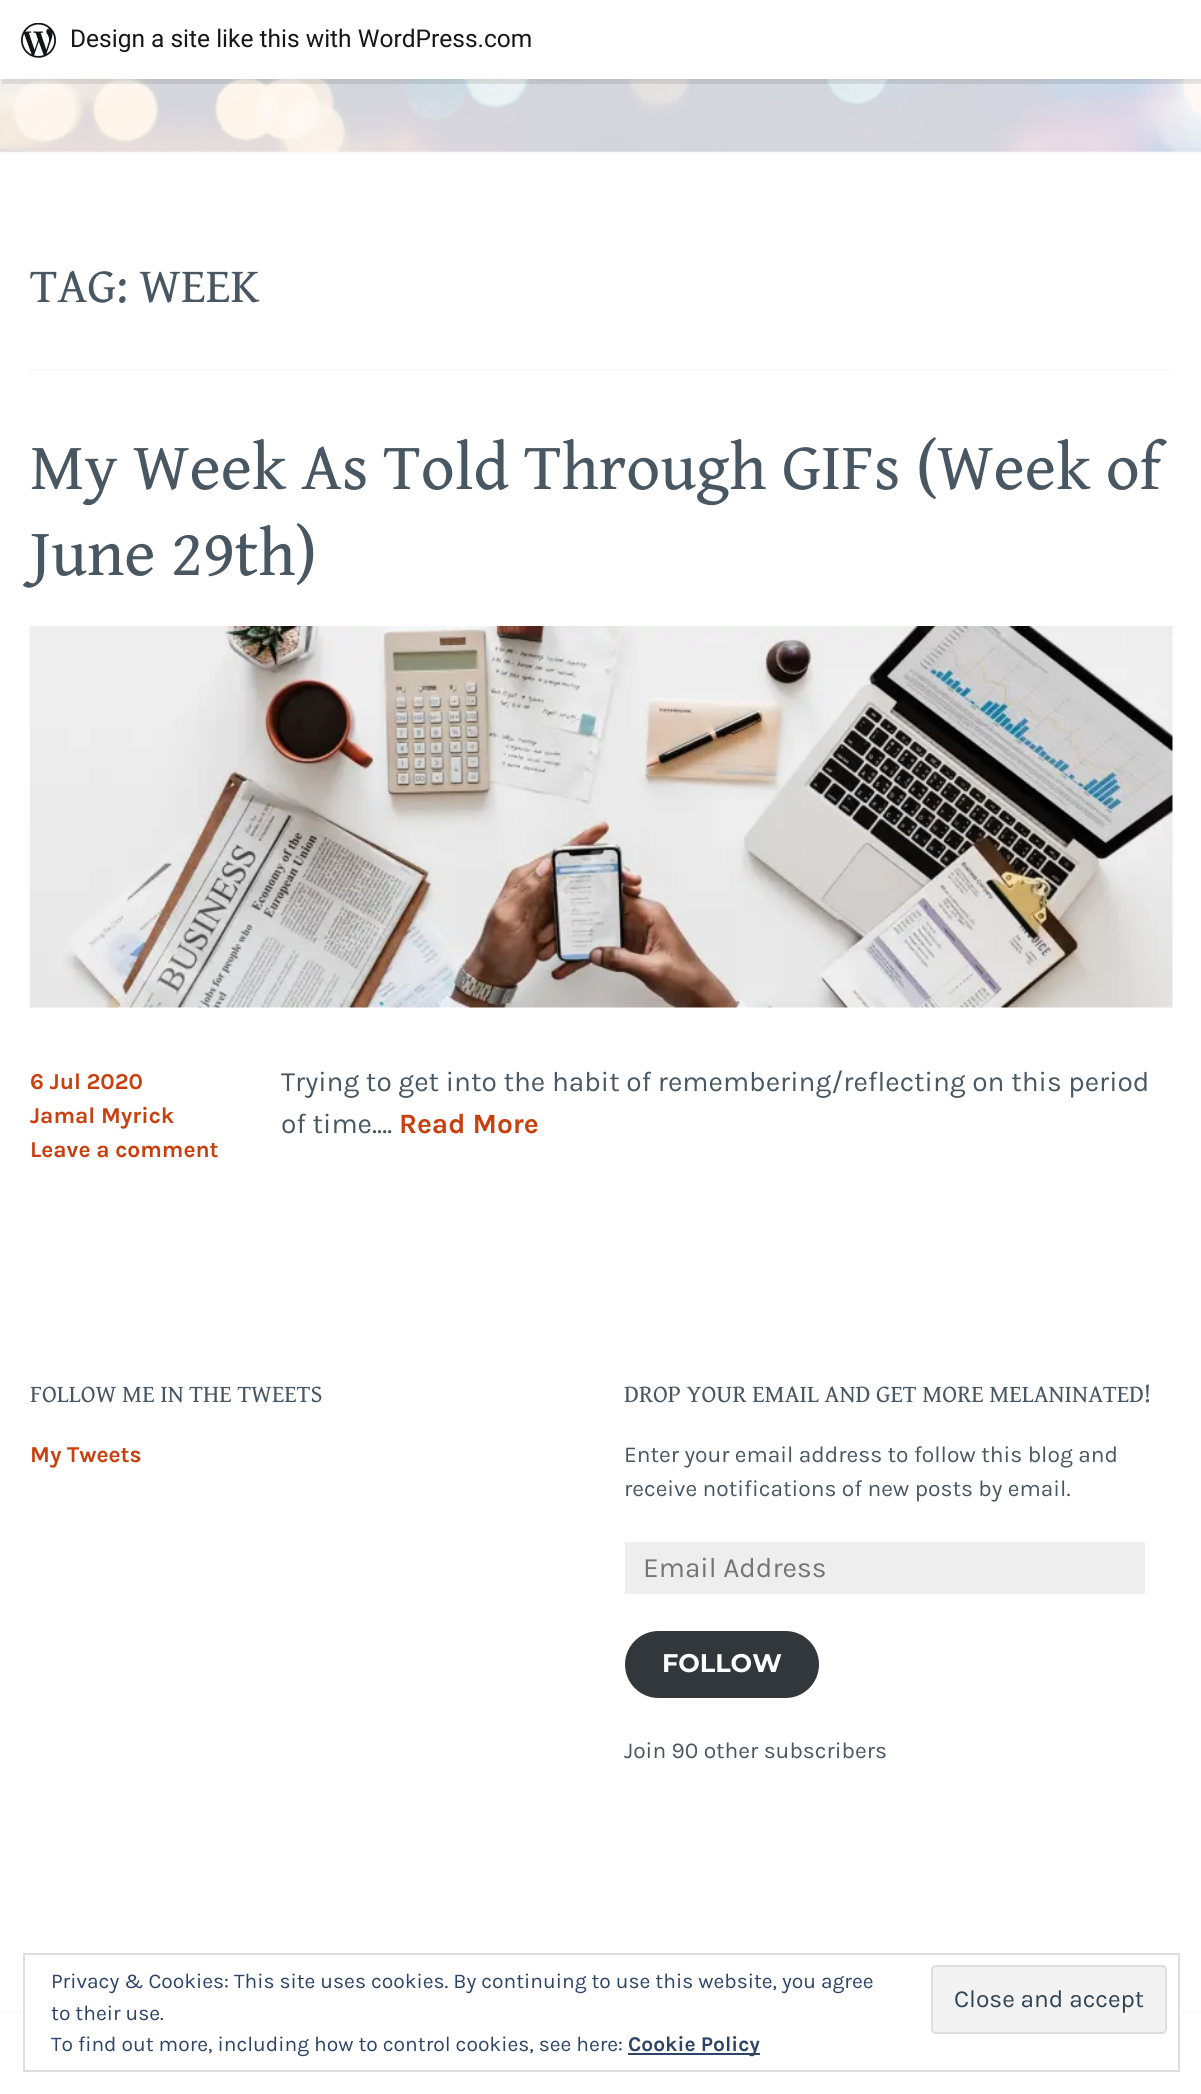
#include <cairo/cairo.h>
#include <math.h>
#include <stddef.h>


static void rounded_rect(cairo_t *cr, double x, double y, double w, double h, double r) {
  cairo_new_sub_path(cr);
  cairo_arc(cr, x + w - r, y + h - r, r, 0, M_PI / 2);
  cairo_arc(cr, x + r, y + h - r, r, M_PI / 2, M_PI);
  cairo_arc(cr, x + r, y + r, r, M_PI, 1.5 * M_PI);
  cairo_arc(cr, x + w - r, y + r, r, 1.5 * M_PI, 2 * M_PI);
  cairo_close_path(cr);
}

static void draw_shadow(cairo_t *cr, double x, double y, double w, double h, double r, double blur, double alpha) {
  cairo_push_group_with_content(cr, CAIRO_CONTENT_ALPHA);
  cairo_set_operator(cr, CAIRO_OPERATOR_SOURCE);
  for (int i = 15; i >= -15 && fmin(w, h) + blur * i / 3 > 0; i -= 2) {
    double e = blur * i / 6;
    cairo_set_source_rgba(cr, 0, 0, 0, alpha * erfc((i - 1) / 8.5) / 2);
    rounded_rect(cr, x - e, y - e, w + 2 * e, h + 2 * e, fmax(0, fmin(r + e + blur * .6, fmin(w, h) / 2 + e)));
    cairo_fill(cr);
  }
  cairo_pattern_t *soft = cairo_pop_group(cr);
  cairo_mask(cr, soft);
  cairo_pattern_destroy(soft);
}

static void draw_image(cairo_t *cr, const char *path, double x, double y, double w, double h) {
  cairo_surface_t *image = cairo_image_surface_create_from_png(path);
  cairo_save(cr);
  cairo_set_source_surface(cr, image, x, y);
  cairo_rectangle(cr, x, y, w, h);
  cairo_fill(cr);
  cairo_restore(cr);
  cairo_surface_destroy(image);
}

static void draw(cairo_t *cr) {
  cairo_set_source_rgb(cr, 1, 1, 1);
  cairo_paint(cr);
  draw_image(cr, "images/2.png", 0, 79, 1201, 73);
  cairo_set_source_rgb(cr, 0, 0, 0);
  draw_shadow(cr, 0, 2, 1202, 79, 0, 2, 0.05);
  cairo_set_source_rgba(cr, 0, 0, 0, 0.08);
  cairo_new_path(cr);
  cairo_move_to(cr, 2, 79);
  cairo_line_to(cr, 2, 84);
  cairo_line_to(cr, 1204, 84);
  cairo_line_to(cr, 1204, 5);
  cairo_line_to(cr, 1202, 5);
  cairo_line_to(cr, 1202, 79);
  cairo_close_path(cr);
  cairo_fill(cr);
  cairo_set_source_rgb(cr, 1, 1, 1);
  cairo_rectangle(cr, 0, 0, 1201, 79);
  cairo_fill(cr);
  draw_image(cr, "images/1.png", 21, 23, 35, 35);
  cairo_set_source_rgb(cr, 250 / 255.0, 250 / 255.0, 250 / 255.0);
  cairo_rectangle(cr, 0, 152, 1201, 2);
  cairo_fill(cr);
  cairo_rectangle(cr, 30, 369, 1143, 2);
  cairo_fill(cr);
  draw_image(cr, "images/3.png", 29, 626, 1144, 382);
  cairo_set_source_rgb(cr, 238 / 255.0, 238 / 255.0, 238 / 255.0);
  cairo_rectangle(cr, 625, 1542, 520, 52);
  cairo_fill(cr);
  cairo_set_source_rgb(cr, 50 / 255.0, 55 / 255.0, 60 / 255.0);
  rounded_rect(cr, 625, 1631, 194, 67, 33.5);
  cairo_fill(cr);
  cairo_set_source_rgb(cr, 250 / 255.0, 250 / 255.0, 250 / 255.0);
  cairo_rectangle(cr, 0, 2011, 1201, 2);
  cairo_fill(cr);
  cairo_set_source_rgb(cr, 1, 1, 1);
  cairo_rectangle(cr, 25, 2011, 1153, 2);
  cairo_fill(cr);
  cairo_rectangle(cr, 24, 1954, 1155, 117);
  cairo_set_source_rgb(cr, 222 / 255.0, 222 / 255.0, 222 / 255.0);
  cairo_stroke(cr);
  cairo_set_source_rgb(cr, 243 / 255.0, 243 / 255.0, 243 / 255.0);
  rounded_rect(cr, 932, 1966, 234, 67, 4);
  cairo_fill_preserve(cr);
  cairo_set_source_rgb(cr, 222 / 255.0, 222 / 255.0, 222 / 255.0);
  cairo_stroke(cr);
  cairo_set_source_rgb(cr, 46 / 255.0, 68 / 255.0, 103 / 255.0);
  cairo_rectangle(cr, 628, 2053, 132, 2);
  cairo_fill(cr);
  cairo_select_font_face(cr, "Roboto", CAIRO_FONT_SLANT_NORMAL, CAIRO_FONT_WEIGHT_NORMAL);
  cairo_set_font_size(cr, 24.5);
  cairo_set_source_rgb(cr, 23 / 255.0, 23 / 255.0, 23 / 255.0);
  cairo_move_to(cr, 70, 47);
  cairo_show_text(cr, "Design a site like this with WordPress.com");
  cairo_select_font_face(cr, "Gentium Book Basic", CAIRO_FONT_SLANT_NORMAL, CAIRO_FONT_WEIGHT_NORMAL);
  cairo_set_font_size(cr, 49);
  cairo_set_source_rgb(cr, 73 / 255.0, 87 / 255.0, 98 / 255.0);
  cairo_move_to(cr, 30, 302);
  cairo_show_text(cr, "TAG: WEEK");
  cairo_set_font_size(cr, 66.5);
  cairo_move_to(cr, 30, 489);
  cairo_show_text(cr, "My Week As Told Through GIFs (Week of");
  cairo_move_to(cr, 30, 575);
  cairo_show_text(cr, "June 29th)");
  cairo_select_font_face(cr, "Karla", CAIRO_FONT_SLANT_NORMAL, CAIRO_FONT_WEIGHT_BOLD);
  cairo_set_font_size(cr, 22.75);
  cairo_set_source_rgb(cr, 199 / 255.0, 64 / 255.0, 14 / 255.0);
  cairo_move_to(cr, 30, 1089);
  cairo_show_text(cr, "6 Jul 2020");
  cairo_move_to(cr, 30, 1123);
  cairo_show_text(cr, "Jamal Myrick");
  cairo_move_to(cr, 30, 1157);
  cairo_show_text(cr, "Leave a comment");
  cairo_select_font_face(cr, "Karla", CAIRO_FONT_SLANT_NORMAL, CAIRO_FONT_WEIGHT_NORMAL);
  cairo_set_font_size(cr, 28);
  cairo_set_source_rgb(cr, 73 / 255.0, 87 / 255.0, 98 / 255.0);
  cairo_move_to(cr, 281, 1091);
  cairo_show_text(cr, "Trying to get into the habit of remembering/reflecting on this period");
  cairo_move_to(cr, 281, 1133);
  cairo_show_text(cr, "of time.…");
  cairo_select_font_face(cr, "Karla", CAIRO_FONT_SLANT_NORMAL, CAIRO_FONT_WEIGHT_BOLD);
  cairo_set_source_rgb(cr, 199 / 255.0, 64 / 255.0, 14 / 255.0);
  cairo_move_to(cr, 399, 1133);
  cairo_show_text(cr, "Read More");
  cairo_select_font_face(cr, "Gentium Book Basic", CAIRO_FONT_SLANT_NORMAL, CAIRO_FONT_WEIGHT_NORMAL);
  cairo_set_font_size(cr, 24.5);
  cairo_set_source_rgb(cr, 73 / 255.0, 87 / 255.0, 98 / 255.0);
  cairo_move_to(cr, 30, 1402);
  cairo_show_text(cr, "FOLLOW ME IN THE TWEETS");
  cairo_select_font_face(cr, "Karla", CAIRO_FONT_SLANT_NORMAL, CAIRO_FONT_WEIGHT_BOLD);
  cairo_set_font_size(cr, 22.75);
  cairo_set_source_rgb(cr, 199 / 255.0, 64 / 255.0, 14 / 255.0);
  cairo_move_to(cr, 30, 1462);
  cairo_show_text(cr, "My Tweets");
  cairo_select_font_face(cr, "Gentium Book Basic", CAIRO_FONT_SLANT_NORMAL, CAIRO_FONT_WEIGHT_NORMAL);
  cairo_set_font_size(cr, 24.5);
  cairo_set_source_rgb(cr, 73 / 255.0, 87 / 255.0, 98 / 255.0);
  cairo_move_to(cr, 624, 1402);
  cairo_show_text(cr, "DROP YOUR EMAIL AND GET MORE MELANINATED!");
  cairo_select_font_face(cr, "Karla", CAIRO_FONT_SLANT_NORMAL, CAIRO_FONT_WEIGHT_NORMAL);
  cairo_set_font_size(cr, 22.75);
  cairo_move_to(cr, 624, 1462);
  cairo_show_text(cr, "Enter your email address to follow this blog and");
  cairo_move_to(cr, 624, 1496);
  cairo_show_text(cr, "receive notifications of new posts by email.");
  cairo_set_font_size(cr, 28);
  cairo_set_source_rgb(cr, 117 / 255.0, 117 / 255.0, 117 / 255.0);
  cairo_move_to(cr, 643, 1577);
  cairo_show_text(cr, "Email Address");
  cairo_select_font_face(cr, "Montserrat", CAIRO_FONT_SLANT_NORMAL, CAIRO_FONT_WEIGHT_BOLD);
  cairo_set_font_size(cr, 25.5);
  cairo_set_source_rgb(cr, 1, 1, 1);
  cairo_move_to(cr, 662, 1672);
  cairo_show_text(cr, "FOLLOW");
  cairo_select_font_face(cr, "Karla", CAIRO_FONT_SLANT_NORMAL, CAIRO_FONT_WEIGHT_NORMAL);
  cairo_set_font_size(cr, 22.75);
  cairo_set_source_rgb(cr, 73 / 255.0, 87 / 255.0, 98 / 255.0);
  cairo_move_to(cr, 624, 1758);
  cairo_show_text(cr, "Join 90 other subscribers");
  cairo_set_font_size(cr, 21);
  cairo_set_source_rgb(cr, 46 / 255.0, 68 / 255.0, 103 / 255.0);
  cairo_move_to(cr, 51, 1988);
  cairo_show_text(cr, "Privacy & Cookies: This site uses cookies. By continuing to use this website, you agree");
  cairo_move_to(cr, 51, 2020);
  cairo_show_text(cr, "to their use.");
  cairo_set_font_size(cr, 24.5);
  cairo_set_source_rgb(cr, 46 / 255.0, 68 / 255.0, 83 / 255.0);
  cairo_move_to(cr, 954, 2007);
  cairo_show_text(cr, "Close and accept");
  cairo_set_font_size(cr, 21);
  cairo_set_source_rgb(cr, 46 / 255.0, 68 / 255.0, 103 / 255.0);
  cairo_move_to(cr, 51, 2051);
  cairo_show_text(cr, "To find out more, including how to control cookies, see here:");
  cairo_select_font_face(cr, "Karla", CAIRO_FONT_SLANT_NORMAL, CAIRO_FONT_WEIGHT_BOLD);
  cairo_move_to(cr, 628, 2051);
  cairo_show_text(cr, "Cookie Policy");
}

int main(void) {
  cairo_surface_t *surface = cairo_image_surface_create(CAIRO_FORMAT_RGB24, 1201, 2094);
  cairo_t *cr = cairo_create(surface);
  cairo_font_options_t *options = cairo_font_options_create();
  cairo_font_options_set_hint_metrics(options, CAIRO_HINT_METRICS_OFF);
  cairo_font_options_set_hint_style(options, CAIRO_HINT_STYLE_NONE);
  cairo_set_font_options(cr, options);
  cairo_set_miter_limit(cr, 4);
  draw(cr);
  cairo_surface_write_to_png(surface, "out.png");
  cairo_font_options_destroy(options);
  cairo_destroy(cr);
  cairo_surface_destroy(surface);
  return 0;
}
